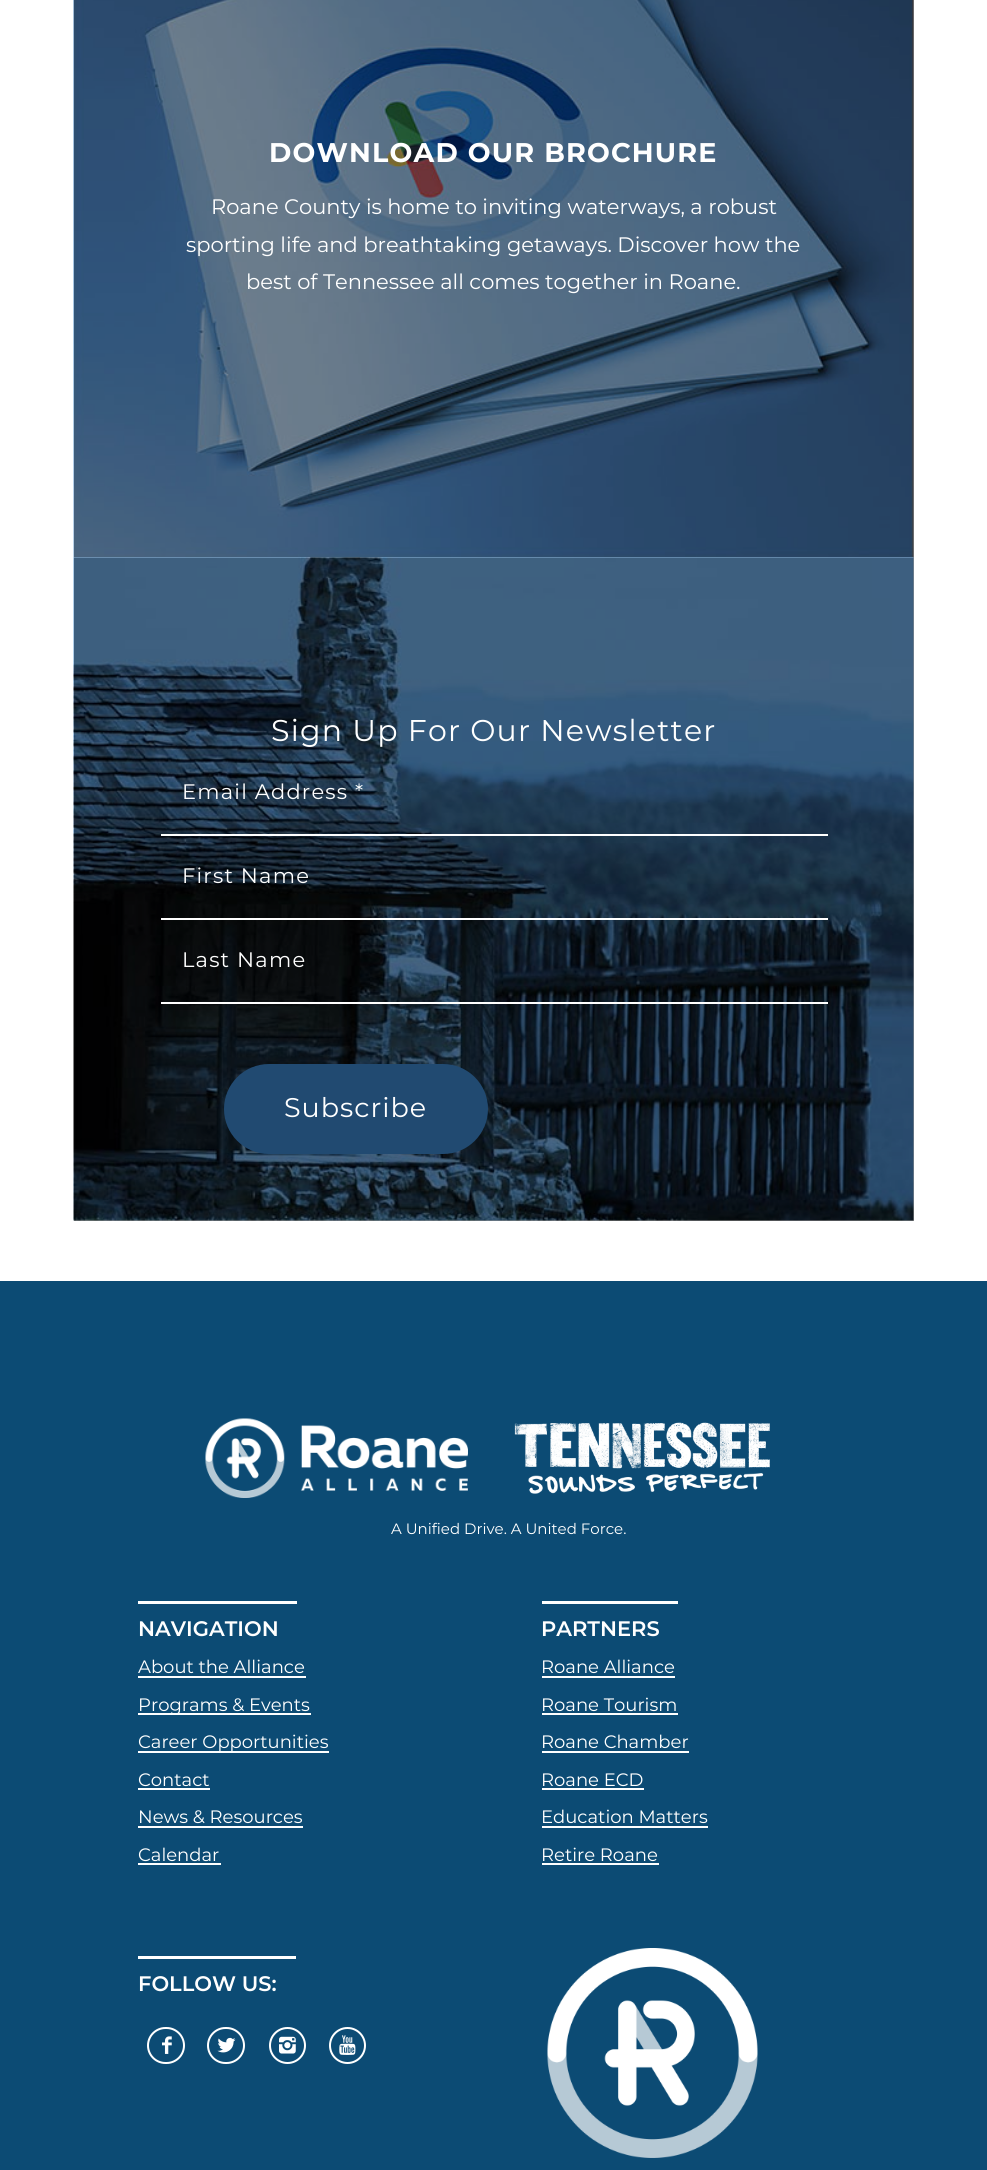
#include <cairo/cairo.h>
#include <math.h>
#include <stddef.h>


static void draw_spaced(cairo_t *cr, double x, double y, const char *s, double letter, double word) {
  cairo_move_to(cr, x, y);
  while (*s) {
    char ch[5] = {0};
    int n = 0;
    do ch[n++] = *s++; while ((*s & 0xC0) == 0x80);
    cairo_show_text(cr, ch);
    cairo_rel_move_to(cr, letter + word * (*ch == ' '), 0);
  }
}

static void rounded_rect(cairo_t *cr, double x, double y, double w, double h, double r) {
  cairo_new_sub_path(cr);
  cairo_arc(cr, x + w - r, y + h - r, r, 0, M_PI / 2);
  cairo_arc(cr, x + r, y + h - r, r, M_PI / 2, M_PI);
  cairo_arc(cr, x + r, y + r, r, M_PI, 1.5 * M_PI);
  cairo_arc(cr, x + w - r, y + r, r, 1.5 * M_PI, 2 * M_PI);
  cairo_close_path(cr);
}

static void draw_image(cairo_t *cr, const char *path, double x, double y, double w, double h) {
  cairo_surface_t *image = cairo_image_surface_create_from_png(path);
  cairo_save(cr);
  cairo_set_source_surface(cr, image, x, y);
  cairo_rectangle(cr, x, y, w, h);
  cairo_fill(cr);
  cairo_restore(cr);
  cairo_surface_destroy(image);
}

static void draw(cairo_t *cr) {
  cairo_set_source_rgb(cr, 1, 1, 1);
  cairo_paint(cr);
  cairo_set_source_rgb(cr, 151 / 255.0, 151 / 255.0, 151 / 255.0);
  cairo_rectangle(cr, 74, 0, 840, 1221);
  cairo_fill(cr);
  draw_image(cr, "images/1.png", 73, 0, 841, 558);
  draw_image(cr, "images/2.png", 73, 557, 841, 664);
  cairo_set_source_rgb(cr, 1, 1, 1);
  cairo_rectangle(cr, 161, 834, 667, 2);
  cairo_fill(cr);
  cairo_rectangle(cr, 161, 918, 667, 2);
  cairo_fill(cr);
  cairo_rectangle(cr, 161, 1002, 667, 2);
  cairo_fill(cr);
  cairo_set_source_rgb(cr, 33 / 255.0, 74 / 255.0, 113 / 255.0);
  rounded_rect(cr, 224, 1064, 264, 90, 45);
  cairo_fill(cr);
  cairo_set_source_rgb(cr, 12 / 255.0, 75 / 255.0, 116 / 255.0);
  cairo_rectangle(cr, 0, 1281, 987, 889);
  cairo_fill(cr);
  draw_image(cr, "images/3.png", 205, 1418, 263, 80);
  draw_image(cr, "images/4.png", 514, 1422, 256, 72);
  cairo_set_source_rgb(cr, 1, 1, 1);
  cairo_rectangle(cr, 138, 1601, 159, 3);
  cairo_fill(cr);
  cairo_rectangle(cr, 138, 1676, 168, 2);
  cairo_fill(cr);
  cairo_rectangle(cr, 138, 1713, 173, 2);
  cairo_fill(cr);
  cairo_rectangle(cr, 138, 1751, 191, 2);
  cairo_fill(cr);
  cairo_rectangle(cr, 138, 1788, 72, 2);
  cairo_fill(cr);
  cairo_rectangle(cr, 138, 1826, 165, 2);
  cairo_fill(cr);
  cairo_rectangle(cr, 138, 1863, 83, 2);
  cairo_fill(cr);
  cairo_rectangle(cr, 542, 1601, 136, 3);
  cairo_fill(cr);
  cairo_rectangle(cr, 542, 1676, 133, 2);
  cairo_fill(cr);
  cairo_rectangle(cr, 542, 1713, 136, 2);
  cairo_fill(cr);
  cairo_rectangle(cr, 542, 1751, 147, 2);
  cairo_fill(cr);
  cairo_rectangle(cr, 542, 1788, 102, 2);
  cairo_fill(cr);
  cairo_rectangle(cr, 542, 1826, 166, 2);
  cairo_fill(cr);
  cairo_rectangle(cr, 542, 1863, 117, 2);
  cairo_fill(cr);
  cairo_rectangle(cr, 138, 1956, 158, 3);
  cairo_fill(cr);
  rounded_rect(cr, 148, 2028, 36, 35, 17.5);
  cairo_stroke(cr);
  draw_image(cr, "images/5.png", 162, 2036, 10, 18);
  rounded_rect(cr, 208, 2028, 36, 35, 17.5);
  cairo_stroke(cr);
  draw_image(cr, "images/6.png", 217, 2037, 19, 16);
  cairo_arc(cr, 287.5, 2045.5, 17.5, 0, 2 * M_PI);
  cairo_stroke(cr);
  draw_image(cr, "images/7.png", 279, 2036, 17, 18);
  cairo_arc(cr, 347.5, 2045.5, 17.5, 0, 2 * M_PI);
  cairo_stroke(cr);
  draw_image(cr, "images/8.png", 339, 2035, 17, 20);
  draw_image(cr, "images/9.png", 547, 1948, 211, 210);
  cairo_select_font_face(cr, "Montserrat", CAIRO_FONT_SLANT_NORMAL, CAIRO_FONT_WEIGHT_BOLD);
  cairo_set_font_size(cr, 27);
  draw_spaced(cr, 269, 162, "DOWNLOAD OUR BROCHURE", 1.2, 0);
  cairo_select_font_face(cr, "Montserrat", CAIRO_FONT_SLANT_NORMAL, CAIRO_FONT_WEIGHT_NORMAL);
  cairo_set_font_size(cr, 21);
  cairo_move_to(cr, 211, 214);
  cairo_show_text(cr, "Roane County is home to inviting waterways, a robust");
  cairo_move_to(cr, 186, 252);
  cairo_show_text(cr, "sporting life and breathtaking getaways. Discover how the");
  cairo_move_to(cr, 246, 289);
  cairo_show_text(cr, "best of Tennessee all comes together in Roane.");
  cairo_set_font_size(cr, 30);
  draw_spaced(cr, 271, 741, "Sign Up For Our Newsletter", 1.2, 0);
  cairo_set_font_size(cr, 21);
  draw_spaced(cr, 182, 799, "Email Address *", 1.2, 0);
  draw_spaced(cr, 182, 883, "First Name", 1.2, 0);
  draw_spaced(cr, 182, 967, "Last Name", 1.2, 0);
  cairo_set_font_size(cr, 27);
  draw_spaced(cr, 284, 1117, "Subscribe", 1, 0);
  cairo_set_font_size(cr, 15);
  cairo_move_to(cr, 391, 1534);
  cairo_show_text(cr, "A Unified Drive. A United Force.");
  cairo_select_font_face(cr, "Montserrat SemiBold", CAIRO_FONT_SLANT_NORMAL, CAIRO_FONT_WEIGHT_NORMAL);
  cairo_set_font_size(cr, 21);
  cairo_move_to(cr, 138, 1636);
  cairo_show_text(cr, "NAVIGATION");
  cairo_select_font_face(cr, "Montserrat", CAIRO_FONT_SLANT_NORMAL, CAIRO_FONT_WEIGHT_NORMAL);
  cairo_set_font_size(cr, 18);
  cairo_move_to(cr, 138, 1673);
  cairo_show_text(cr, "About the Alliance");
  cairo_move_to(cr, 138, 1711);
  cairo_show_text(cr, "Programs & Events");
  cairo_move_to(cr, 138, 1748);
  cairo_show_text(cr, "Career Opportunities");
  cairo_move_to(cr, 138, 1786);
  cairo_show_text(cr, "Contact");
  cairo_move_to(cr, 138, 1823);
  cairo_show_text(cr, "News & Resources");
  cairo_move_to(cr, 138, 1861);
  cairo_show_text(cr, "Calendar");
  cairo_select_font_face(cr, "Montserrat SemiBold", CAIRO_FONT_SLANT_NORMAL, CAIRO_FONT_WEIGHT_NORMAL);
  cairo_set_font_size(cr, 21);
  cairo_move_to(cr, 541, 1636);
  cairo_show_text(cr, "PARTNERS");
  cairo_select_font_face(cr, "Montserrat", CAIRO_FONT_SLANT_NORMAL, CAIRO_FONT_WEIGHT_NORMAL);
  cairo_set_font_size(cr, 18);
  cairo_move_to(cr, 541, 1673);
  cairo_show_text(cr, "Roane Alliance");
  cairo_move_to(cr, 541, 1711);
  cairo_show_text(cr, "Roane Tourism");
  cairo_move_to(cr, 541, 1748);
  cairo_show_text(cr, "Roane Chamber");
  cairo_move_to(cr, 541, 1786);
  cairo_show_text(cr, "Roane ECD");
  cairo_move_to(cr, 541, 1823);
  cairo_show_text(cr, "Education Matters");
  cairo_move_to(cr, 541, 1861);
  cairo_show_text(cr, "Retire Roane");
  cairo_select_font_face(cr, "Montserrat SemiBold", CAIRO_FONT_SLANT_NORMAL, CAIRO_FONT_WEIGHT_NORMAL);
  cairo_set_font_size(cr, 21);
  cairo_move_to(cr, 138, 1991);
  cairo_show_text(cr, "FOLLOW US:");
}

int main(void) {
  cairo_surface_t *surface = cairo_image_surface_create(CAIRO_FORMAT_RGB24, 987, 2170);
  cairo_t *cr = cairo_create(surface);
  cairo_font_options_t *options = cairo_font_options_create();
  cairo_font_options_set_hint_metrics(options, CAIRO_HINT_METRICS_OFF);
  cairo_font_options_set_hint_style(options, CAIRO_HINT_STYLE_NONE);
  cairo_set_font_options(cr, options);
  cairo_set_miter_limit(cr, 4);
  draw(cr);
  cairo_surface_write_to_png(surface, "out.png");
  cairo_font_options_destroy(options);
  cairo_destroy(cr);
  cairo_surface_destroy(surface);
  return 0;
}
